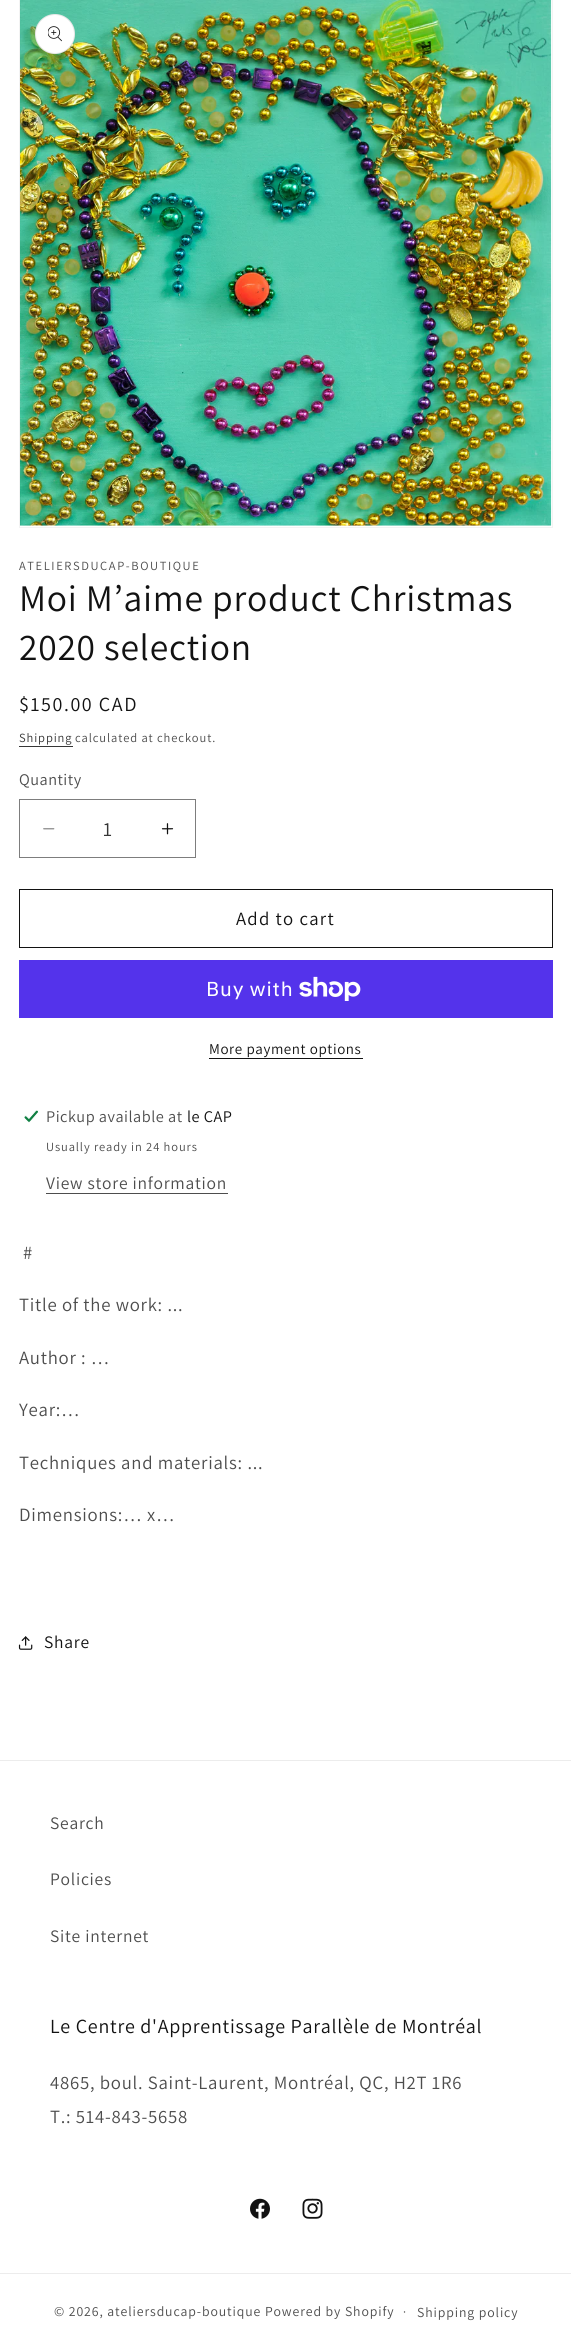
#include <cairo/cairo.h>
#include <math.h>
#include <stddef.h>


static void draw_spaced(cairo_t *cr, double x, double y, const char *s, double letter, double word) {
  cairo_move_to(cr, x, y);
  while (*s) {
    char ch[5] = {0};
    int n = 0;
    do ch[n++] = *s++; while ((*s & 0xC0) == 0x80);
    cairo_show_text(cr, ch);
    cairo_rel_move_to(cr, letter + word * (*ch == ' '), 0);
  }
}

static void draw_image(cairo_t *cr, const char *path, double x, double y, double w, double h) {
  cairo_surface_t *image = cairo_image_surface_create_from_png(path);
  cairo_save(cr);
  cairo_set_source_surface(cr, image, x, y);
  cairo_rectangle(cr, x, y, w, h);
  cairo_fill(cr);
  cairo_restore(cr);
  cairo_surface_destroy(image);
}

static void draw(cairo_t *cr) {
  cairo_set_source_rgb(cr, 1, 1, 1);
  cairo_paint(cr);
  cairo_rectangle(cr, 19.5, -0.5, 533, 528);
  cairo_set_source_rgb(cr, 243 / 255.0, 243 / 255.0, 243 / 255.0);
  cairo_set_line_width(cr, 1);
  cairo_stroke(cr);
  draw_image(cr, "images/1.png", 20, 0, 532, 526);
  cairo_set_source_rgb(cr, 1, 1, 1);
  cairo_arc(cr, 55, 34, 20, 0, 2 * M_PI);
  cairo_fill(cr);
  cairo_arc(cr, 55, 34, 19.5, 0, 2 * M_PI);
  cairo_set_source_rgba(cr, 18 / 255.0, 18 / 255.0, 18 / 255.0, 0.1);
  cairo_stroke(cr);
  draw_image(cr, "images/2.png", 48, 26, 14, 16);
  cairo_set_source_rgb(cr, 54 / 255.0, 54 / 255.0, 54 / 255.0);
  cairo_rectangle(cr, 19, 746, 54, 1);
  cairo_fill(cr);
  draw_image(cr, "images/3.png", 43, 828, 12, 2);
  draw_image(cr, "images/4.png", 161, 823, 13, 12);
  cairo_rectangle(cr, 19.5, 799.5, 176, 58);
  cairo_set_source_rgb(cr, 125 / 255.0, 125 / 255.0, 125 / 255.0);
  cairo_stroke(cr);
  cairo_rectangle(cr, 19.5, 889.5, 533, 58);
  cairo_set_source_rgb(cr, 18 / 255.0, 18 / 255.0, 18 / 255.0);
  cairo_stroke(cr);
  cairo_set_source_rgb(cr, 84 / 255.0, 51 / 255.0, 235 / 255.0);
  cairo_rectangle(cr, 19, 960, 534, 58);
  cairo_fill(cr);
  draw_image(cr, "images/5.png", 299, 976, 62, 25);
  cairo_set_source_rgb(cr, 18 / 255.0, 18 / 255.0, 18 / 255.0);
  cairo_rectangle(cr, 209, 1058, 154, 1);
  cairo_fill(cr);
  draw_image(cr, "images/6.png", 24, 1110, 15, 13);
  cairo_set_source_rgb(cr, 77 / 255.0, 77 / 255.0, 77 / 255.0);
  cairo_rectangle(cr, 46, 1193, 182, 1);
  cairo_fill(cr);
  draw_image(cr, "images/7.png", 18, 1636, 15, 14);
  cairo_set_source_rgb(cr, 236 / 255.0, 236 / 255.0, 236 / 255.0);
  cairo_rectangle(cr, 0, 1760, 571, 1);
  cairo_fill(cr);
  draw_image(cr, "images/8.png", 250, 2198, 20, 21);
  draw_image(cr, "images/9.png", 302, 2198, 21, 21);
  cairo_rectangle(cr, 0, 2273, 571, 1);
  cairo_fill(cr);
  cairo_select_font_face(cr, "Assistant", CAIRO_FONT_SLANT_NORMAL, CAIRO_FONT_WEIGHT_NORMAL);
  cairo_set_font_size(cr, 12.5);
  cairo_set_source_rgb(cr, 77 / 255.0, 77 / 255.0, 77 / 255.0);
  draw_spaced(cr, 19, 570, "ATELIERSDUCAP-BOUTIQUE", 1.6, 0);
  cairo_set_font_size(cr, 37.5);
  cairo_set_source_rgb(cr, 18 / 255.0, 18 / 255.0, 18 / 255.0);
  draw_spaced(cr, 19, 611, "Moi M’aime product Christmas", 0.75, 0);
  draw_spaced(cr, 19, 660, "2020 selection", 0.75, 0);
  cairo_set_font_size(cr, 20);
  draw_spaced(cr, 19, 711, "$150.00 CAD", 1.6, 0);
  cairo_set_font_size(cr, 12.5);
  cairo_set_source_rgb(cr, 54 / 255.0, 54 / 255.0, 54 / 255.0);
  draw_spaced(cr, 19, 742, "Shipping", 0.9, 0);
  cairo_set_source_rgb(cr, 77 / 255.0, 77 / 255.0, 77 / 255.0);
  draw_spaced(cr, 75, 742, "calculated at checkout.", 0.9, 0);
  cairo_set_font_size(cr, 16.25);
  draw_spaced(cr, 19, 785, "Quantity", 0.5, 0);
  cairo_set_font_size(cr, 20);
  cairo_set_source_rgb(cr, 54 / 255.0, 54 / 255.0, 54 / 255.0);
  cairo_move_to(cr, 103, 836);
  cairo_show_text(cr, "1");
  cairo_set_font_size(cr, 18.75);
  cairo_set_source_rgb(cr, 18 / 255.0, 18 / 255.0, 18 / 255.0);
  draw_spaced(cr, 236, 925, "Add to cart", 1.25, 0);
  cairo_select_font_face(cr, "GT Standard", CAIRO_FONT_SLANT_NORMAL, CAIRO_FONT_WEIGHT_NORMAL);
  cairo_set_font_size(cr, 20);
  cairo_set_source_rgb(cr, 1, 1, 1);
  draw_spaced(cr, 206, 996, "Buy with", 0.75, 0);
  cairo_select_font_face(cr, "Assistant", CAIRO_FONT_SLANT_NORMAL, CAIRO_FONT_WEIGHT_NORMAL);
  cairo_set_font_size(cr, 15);
  cairo_set_source_rgb(cr, 18 / 255.0, 18 / 255.0, 18 / 255.0);
  draw_spaced(cr, 209, 1054, "More payment options", 0.6, 0);
  cairo_set_font_size(cr, 16.25);
  cairo_set_source_rgb(cr, 77 / 255.0, 77 / 255.0, 77 / 255.0);
  draw_spaced(cr, 46, 1122, "Pickup available at", 0.5, 0);
  cairo_set_source_rgb(cr, 18 / 255.0, 18 / 255.0, 18 / 255.0);
  draw_spaced(cr, 187, 1122, "le CAP", 0.5, 0);
  cairo_set_font_size(cr, 12.5);
  cairo_set_source_rgb(cr, 77 / 255.0, 77 / 255.0, 77 / 255.0);
  draw_spaced(cr, 46, 1151, "Usually ready in 24 hours", 0.9, 0);
  cairo_set_font_size(cr, 17.5);
  draw_spaced(cr, 46, 1189, "View store information", 0.75, 0);
  cairo_set_font_size(cr, 18.75);
  draw_spaced(cr, 23, 1259, "#", 0.75, 0);
  draw_spaced(cr, 19, 1311, "Title of the work: ...", 0.75, 0);
  draw_spaced(cr, 19, 1364, "Author : …", 0.75, 0);
  draw_spaced(cr, 19, 1416, "Year:…", 0.75, 0);
  draw_spaced(cr, 19, 1469, "Techniques and materials: ...", 0.75, 0);
  draw_spaced(cr, 19, 1521, "Dimensions:… x…", 0.75, 0);
  cairo_set_font_size(cr, 17.5);
  cairo_set_source_rgb(cr, 18 / 255.0, 18 / 255.0, 18 / 255.0);
  draw_spaced(cr, 44, 1648, "Share", 0.75, 0);
  cairo_set_source_rgb(cr, 77 / 255.0, 77 / 255.0, 77 / 255.0);
  draw_spaced(cr, 50, 1829, "Search", 0.75, 0);
  draw_spaced(cr, 50, 1885, "Policies", 0.75, 0);
  draw_spaced(cr, 50, 1942, "Site internet", 0.75, 0);
  cairo_set_font_size(cr, 20);
  cairo_set_source_rgb(cr, 18 / 255.0, 18 / 255.0, 18 / 255.0);
  draw_spaced(cr, 50, 2033, "Le Centre d'Apprentissage Parallèle de Montréal", 0.75, 0);
  cairo_set_font_size(cr, 18.75);
  cairo_set_source_rgb(cr, 77 / 255.0, 77 / 255.0, 77 / 255.0);
  draw_spaced(cr, 50, 2089, "4865, boul. Saint-Laurent, Montréal, QC, H2T 1R6", 0.75, 0);
  draw_spaced(cr, 50, 2123, "T.: 514-843-5658", 0.75, 0);
  cairo_set_font_size(cr, 13.75);
  draw_spaced(cr, 54, 2316, "© 2026, ateliersducap-boutique Powered by Shopify", 0.9, 0);
  cairo_set_font_size(cr, 12.5);
  draw_spaced(cr, 403, 2316, "·", 0.9, 0);
  cairo_set_font_size(cr, 13.75);
  draw_spaced(cr, 417, 2317, "Shipping policy", 0.9, 0);
}

int main(void) {
  cairo_surface_t *surface = cairo_image_surface_create(CAIRO_FORMAT_RGB24, 571, 2341);
  cairo_t *cr = cairo_create(surface);
  cairo_font_options_t *options = cairo_font_options_create();
  cairo_font_options_set_hint_metrics(options, CAIRO_HINT_METRICS_OFF);
  cairo_font_options_set_hint_style(options, CAIRO_HINT_STYLE_NONE);
  cairo_set_font_options(cr, options);
  cairo_set_miter_limit(cr, 4);
  draw(cr);
  cairo_surface_write_to_png(surface, "out.png");
  cairo_font_options_destroy(options);
  cairo_destroy(cr);
  cairo_surface_destroy(surface);
  return 0;
}
